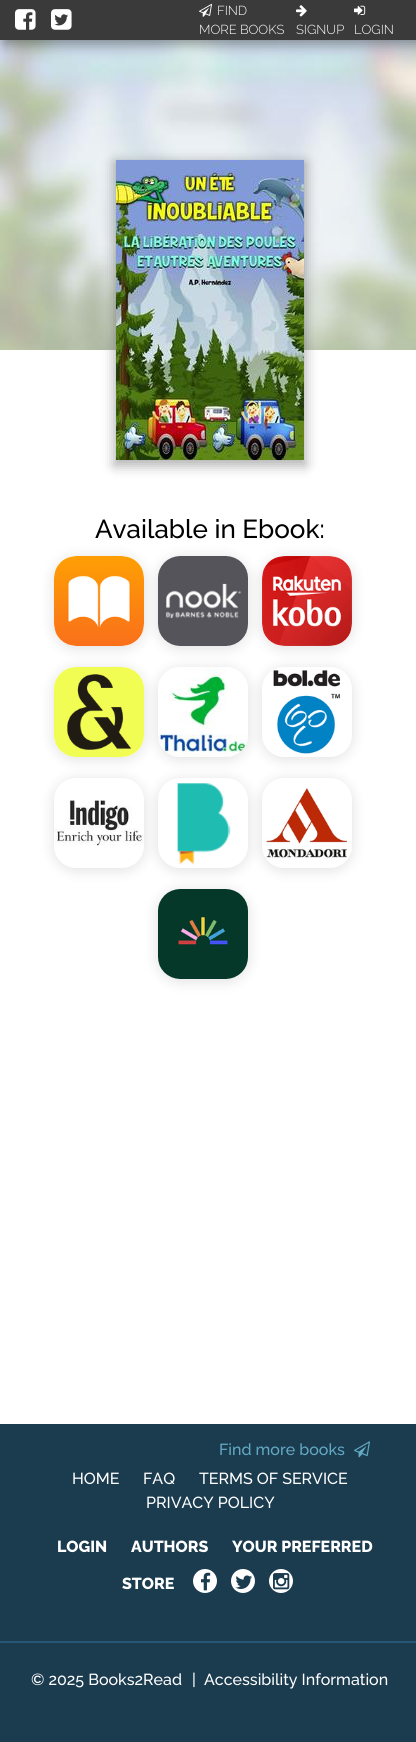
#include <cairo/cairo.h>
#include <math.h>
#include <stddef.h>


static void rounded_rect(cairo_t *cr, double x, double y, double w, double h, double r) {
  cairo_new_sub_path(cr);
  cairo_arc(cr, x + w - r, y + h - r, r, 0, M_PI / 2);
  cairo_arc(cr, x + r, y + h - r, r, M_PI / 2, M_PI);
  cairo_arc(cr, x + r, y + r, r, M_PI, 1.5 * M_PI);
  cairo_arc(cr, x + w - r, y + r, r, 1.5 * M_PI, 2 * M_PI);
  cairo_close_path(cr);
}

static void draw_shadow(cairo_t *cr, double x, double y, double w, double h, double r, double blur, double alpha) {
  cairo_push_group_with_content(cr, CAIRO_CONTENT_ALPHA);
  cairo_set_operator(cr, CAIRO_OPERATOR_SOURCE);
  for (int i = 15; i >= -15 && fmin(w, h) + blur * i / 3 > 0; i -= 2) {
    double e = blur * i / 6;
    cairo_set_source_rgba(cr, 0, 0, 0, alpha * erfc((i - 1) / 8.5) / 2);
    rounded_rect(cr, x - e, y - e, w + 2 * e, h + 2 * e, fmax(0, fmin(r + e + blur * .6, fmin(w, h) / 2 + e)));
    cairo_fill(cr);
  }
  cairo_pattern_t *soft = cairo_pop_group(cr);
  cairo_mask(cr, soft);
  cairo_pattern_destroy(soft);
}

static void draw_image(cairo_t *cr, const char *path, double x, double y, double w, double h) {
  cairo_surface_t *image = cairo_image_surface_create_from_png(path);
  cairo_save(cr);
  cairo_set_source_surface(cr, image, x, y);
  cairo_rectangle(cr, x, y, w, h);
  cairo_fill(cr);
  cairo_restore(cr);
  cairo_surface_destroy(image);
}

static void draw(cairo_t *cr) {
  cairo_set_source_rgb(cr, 1, 1, 1);
  cairo_paint(cr);
  draw_image(cr, "images/1.png", 0, 40, 416, 310);
  cairo_set_source_rgb(cr, 0, 0, 0);
  draw_shadow(cr, 4, 4, 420, 40, 0, 7, 0.4);
  cairo_set_source_rgb(cr, 58 / 255.0, 58 / 255.0, 58 / 255.0);
  cairo_rectangle(cr, 0, 0, 416, 40);
  cairo_fill(cr);
  draw_image(cr, "images/2.png", 15, 9, 21, 21);
  draw_image(cr, "images/3.png", 51, 9, 21, 21);
  draw_image(cr, "images/4.png", 199, 3, 13, 14);
  draw_image(cr, "images/5.png", 296, 5, 11, 12);
  draw_image(cr, "images/6.png", 354, 5, 12, 10);
  cairo_set_source_rgb(cr, 0, 0, 0);
  draw_shadow(cr, 114, 162, 192, 304, 0, 6, 0.3);
  draw_image(cr, "images/7.png", 116, 160, 188, 300);
  draw_shadow(cr, 52, 556, 94, 94, 24, 6, 0.1);
  cairo_set_source_rgb(cr, 1, 1, 1);
  rounded_rect(cr, 54, 556, 90, 90, 22);
  cairo_fill(cr);
  draw_image(cr, "images/8.png", 54, 556, 90, 90);
  cairo_set_source_rgb(cr, 0, 0, 0);
  draw_shadow(cr, 156, 556, 94, 94, 24, 6, 0.1);
  cairo_set_source_rgb(cr, 1, 1, 1);
  rounded_rect(cr, 158, 556, 90, 90, 22);
  cairo_fill(cr);
  draw_image(cr, "images/9.png", 158, 556, 90, 90);
  cairo_set_source_rgb(cr, 0, 0, 0);
  draw_shadow(cr, 260, 556, 94, 94, 24, 6, 0.1);
  cairo_set_source_rgb(cr, 1, 1, 1);
  rounded_rect(cr, 262, 556, 90, 90, 22);
  cairo_fill(cr);
  draw_image(cr, "images/10.png", 262, 556, 90, 90);
  cairo_set_source_rgb(cr, 0, 0, 0);
  draw_shadow(cr, 52, 667, 94, 94, 24, 6, 0.1);
  cairo_set_source_rgb(cr, 1, 1, 1);
  rounded_rect(cr, 54, 667, 90, 90, 22);
  cairo_fill(cr);
  draw_image(cr, "images/11.png", 54, 667, 90, 90);
  cairo_set_source_rgb(cr, 0, 0, 0);
  draw_shadow(cr, 156, 667, 94, 94, 24, 6, 0.1);
  cairo_set_source_rgb(cr, 1, 1, 1);
  rounded_rect(cr, 158, 667, 90, 90, 22);
  cairo_fill(cr);
  draw_image(cr, "images/12.png", 158, 667, 90, 90);
  cairo_set_source_rgb(cr, 0, 0, 0);
  draw_shadow(cr, 260, 667, 94, 94, 24, 6, 0.1);
  cairo_set_source_rgb(cr, 1, 1, 1);
  rounded_rect(cr, 262, 667, 90, 90, 22);
  cairo_fill(cr);
  draw_image(cr, "images/13.png", 273, 670, 68, 84);
  cairo_set_source_rgb(cr, 0, 0, 0);
  draw_shadow(cr, 52, 778, 94, 94, 24, 6, 0.1);
  cairo_set_source_rgb(cr, 1, 1, 1);
  rounded_rect(cr, 54, 778, 90, 90, 22);
  cairo_fill(cr);
  draw_image(cr, "images/14.png", 54, 800, 90, 46);
  cairo_set_source_rgb(cr, 0, 0, 0);
  draw_shadow(cr, 156, 778, 94, 94, 24, 6, 0.1);
  cairo_set_source_rgb(cr, 1, 1, 1);
  rounded_rect(cr, 158, 778, 90, 90, 22);
  cairo_fill(cr);
  cairo_set_source_rgb(cr, 0, 0, 0);
  draw_shadow(cr, 260, 778, 94, 94, 24, 6, 0.1);
  cairo_set_source_rgb(cr, 1, 1, 1);
  rounded_rect(cr, 262, 778, 90, 90, 22);
  cairo_fill(cr);
  draw_image(cr, "images/15.png", 177, 783, 54, 82);
  draw_image(cr, "images/16.png", 266, 788, 81, 70);
  cairo_set_source_rgb(cr, 0, 0, 0);
  draw_shadow(cr, 156, 889, 94, 94, 24, 6, 0.1);
  cairo_set_source_rgb(cr, 1, 1, 1);
  rounded_rect(cr, 158, 889, 90, 90, 22);
  cairo_fill(cr);
  draw_image(cr, "images/17.png", 158, 889, 90, 90);
  cairo_set_source_rgb(cr, 27 / 255.0, 59 / 255.0, 79 / 255.0);
  cairo_rectangle(cr, 0, 1424, 416, 318);
  cairo_fill(cr);
  draw_image(cr, "images/18.png", 354, 1441, 16, 17);
  cairo_set_source_rgb(cr, 1, 1, 1);
  cairo_arc(cr, 205, 1581, 12, 0, 2 * M_PI);
  cairo_fill(cr);
  draw_image(cr, "images/19.png", 201, 1572, 10, 19);
  cairo_arc(cr, 243, 1581, 12, 0, 2 * M_PI);
  cairo_fill(cr);
  draw_image(cr, "images/20.png", 235, 1575, 17, 14);
  cairo_arc(cr, 281, 1581, 12, 0, 2 * M_PI);
  cairo_fill(cr);
  draw_image(cr, "images/21.png", 273, 1573, 17, 17);
  cairo_set_source_rgb(cr, 40 / 255.0, 87 / 255.0, 117 / 255.0);
  cairo_rectangle(cr, 0, 1641, 416, 2);
  cairo_fill(cr);
  cairo_select_font_face(cr, "Raleway Light", CAIRO_FONT_SLANT_NORMAL, CAIRO_FONT_WEIGHT_NORMAL);
  cairo_set_font_size(cr, 13);
  cairo_set_source_rgb(cr, 1, 1, 1);
  cairo_move_to(cr, 217, 15);
  cairo_show_text(cr, "FIND");
  cairo_move_to(cr, 199, 34);
  cairo_show_text(cr, "MORE BOOKS");
  cairo_move_to(cr, 296, 34);
  cairo_show_text(cr, "SIGNUP");
  cairo_move_to(cr, 354, 34);
  cairo_show_text(cr, "LOGIN");
  cairo_select_font_face(cr, "Raleway Medium", CAIRO_FONT_SLANT_NORMAL, CAIRO_FONT_WEIGHT_NORMAL);
  cairo_set_font_size(cr, 26);
  cairo_set_source_rgb(cr, 0, 0, 0);
  cairo_move_to(cr, 95, 538);
  cairo_show_text(cr, "Available in Ebook:");
  cairo_set_font_size(cr, 16);
  cairo_set_source_rgb(cr, 99 / 255.0, 170 / 255.0, 197 / 255.0);
  cairo_move_to(cr, 219, 1455);
  cairo_show_text(cr, "Find more books");
  cairo_set_source_rgb(cr, 1, 1, 1);
  cairo_move_to(cr, 72, 1484);
  cairo_show_text(cr, "HOME");
  cairo_move_to(cr, 143, 1484);
  cairo_show_text(cr, "FAQ");
  cairo_move_to(cr, 199, 1484);
  cairo_show_text(cr, "TERMS OF SERVICE");
  cairo_move_to(cr, 146, 1508);
  cairo_show_text(cr, "PRIVACY POLICY");
  cairo_select_font_face(cr, "Raleway ExtraBold", CAIRO_FONT_SLANT_NORMAL, CAIRO_FONT_WEIGHT_NORMAL);
  cairo_move_to(cr, 57, 1552);
  cairo_show_text(cr, "LOGIN");
  cairo_move_to(cr, 131, 1552);
  cairo_show_text(cr, "AUTHORS");
  cairo_move_to(cr, 232, 1552);
  cairo_show_text(cr, "YOUR PREFERRED");
  cairo_move_to(cr, 122, 1589);
  cairo_show_text(cr, "STORE");
  cairo_select_font_face(cr, "Raleway Medium", CAIRO_FONT_SLANT_NORMAL, CAIRO_FONT_WEIGHT_NORMAL);
  cairo_move_to(cr, 31, 1685);
  cairo_show_text(cr, "© 2025 Books2Read");
  cairo_move_to(cr, 192, 1685);
  cairo_show_text(cr, "|");
  cairo_move_to(cr, 204, 1685);
  cairo_show_text(cr, "Accessibility Information");
}

int main(void) {
  cairo_surface_t *surface = cairo_image_surface_create(CAIRO_FORMAT_RGB24, 416, 1742);
  cairo_t *cr = cairo_create(surface);
  cairo_font_options_t *options = cairo_font_options_create();
  cairo_font_options_set_hint_metrics(options, CAIRO_HINT_METRICS_OFF);
  cairo_font_options_set_hint_style(options, CAIRO_HINT_STYLE_NONE);
  cairo_set_font_options(cr, options);
  cairo_set_miter_limit(cr, 4);
  draw(cr);
  cairo_surface_write_to_png(surface, "out.png");
  cairo_font_options_destroy(options);
  cairo_destroy(cr);
  cairo_surface_destroy(surface);
  return 0;
}
